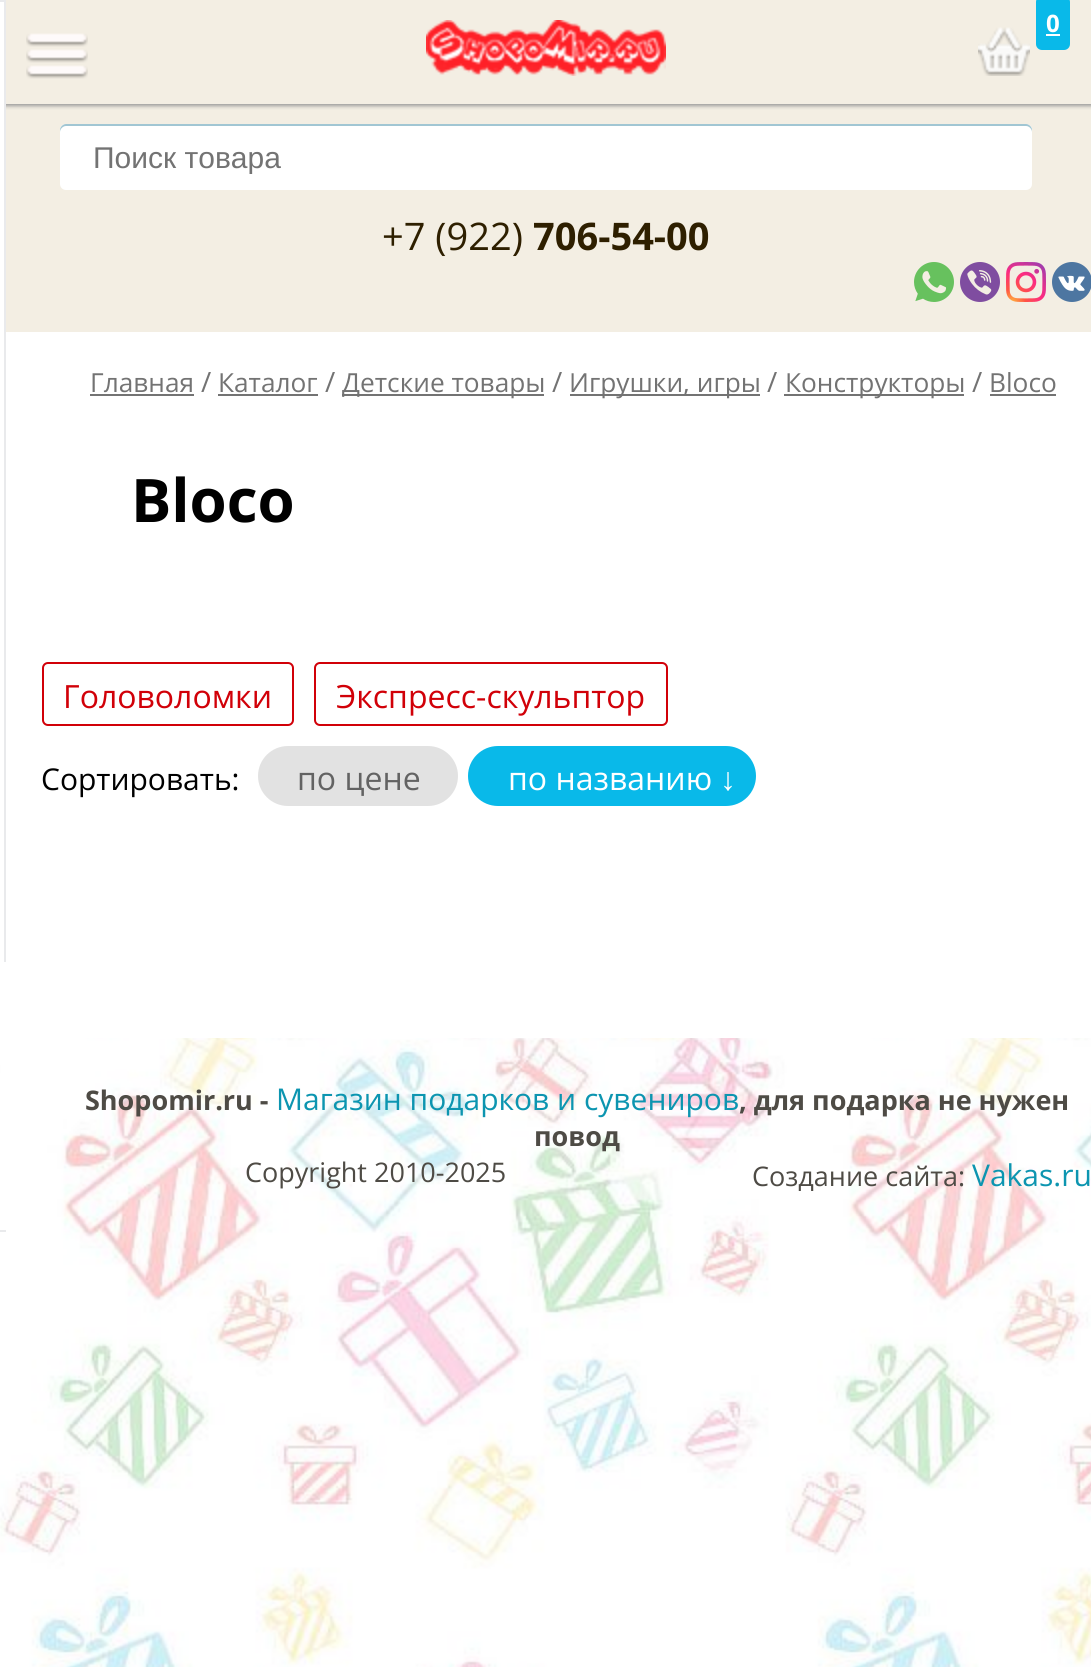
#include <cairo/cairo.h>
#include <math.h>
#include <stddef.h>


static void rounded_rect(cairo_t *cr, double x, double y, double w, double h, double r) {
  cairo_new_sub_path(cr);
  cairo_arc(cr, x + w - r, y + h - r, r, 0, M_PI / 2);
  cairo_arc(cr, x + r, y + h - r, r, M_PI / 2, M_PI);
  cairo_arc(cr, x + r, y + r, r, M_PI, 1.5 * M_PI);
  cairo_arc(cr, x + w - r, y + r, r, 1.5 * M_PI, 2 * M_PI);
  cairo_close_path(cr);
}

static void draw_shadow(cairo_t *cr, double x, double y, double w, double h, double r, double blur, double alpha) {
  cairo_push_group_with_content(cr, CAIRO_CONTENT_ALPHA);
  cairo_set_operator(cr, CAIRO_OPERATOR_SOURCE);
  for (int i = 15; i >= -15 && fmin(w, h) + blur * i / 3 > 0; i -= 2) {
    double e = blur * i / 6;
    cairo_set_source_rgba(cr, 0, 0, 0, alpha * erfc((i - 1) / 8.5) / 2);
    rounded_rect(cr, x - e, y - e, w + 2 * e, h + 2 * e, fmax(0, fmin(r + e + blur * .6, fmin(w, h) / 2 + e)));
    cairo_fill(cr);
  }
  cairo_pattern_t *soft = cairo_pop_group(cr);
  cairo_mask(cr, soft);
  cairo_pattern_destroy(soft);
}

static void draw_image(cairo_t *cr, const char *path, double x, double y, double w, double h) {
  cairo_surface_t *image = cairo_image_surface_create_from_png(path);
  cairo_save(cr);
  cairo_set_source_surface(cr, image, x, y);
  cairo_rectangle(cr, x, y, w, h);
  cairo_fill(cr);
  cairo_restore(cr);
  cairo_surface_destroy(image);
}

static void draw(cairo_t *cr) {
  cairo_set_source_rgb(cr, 1, 1, 1);
  cairo_paint(cr);
  draw_image(cr, "images/1.png", 0, 1038, 1091, 629);
  cairo_set_source_rgb(cr, 243 / 255.0, 238 / 255.0, 227 / 255.0);
  cairo_rectangle(cr, 6, 0, 1085, 332);
  cairo_fill(cr);
  cairo_save(cr);
  cairo_rectangle(cr, 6, 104, 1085, 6);
  cairo_clip(cr);
  cairo_set_source_rgb(cr, 153 / 255.0, 153 / 255.0, 153 / 255.0);
  draw_shadow(cr, 0, 2, 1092, 104, 0, 2, 1);
  cairo_restore(cr);
  cairo_set_source_rgb(cr, 1, 1, 1);
  cairo_rectangle(cr, 0, 104, 6, 6);
  cairo_fill(cr);
  cairo_set_source_rgb(cr, 233 / 255.0, 234 / 255.0, 236 / 255.0);
  cairo_rectangle(cr, 0, 0, 6, 2);
  cairo_fill(cr);
  cairo_rectangle(cr, 0, 1230, 6, 2);
  cairo_fill(cr);
  cairo_rectangle(cr, 4, 2, 2, 960);
  cairo_fill(cr);
  draw_image(cr, "images/2.png", 26, 33, 62, 46);
  draw_image(cr, "images/3.png", 426, 20, 240, 56);
  cairo_set_source_rgb(cr, 9 / 255.0, 185 / 255.0, 233 / 255.0);
  rounded_rect(cr, 1036, -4, 34, 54, 6);
  cairo_fill(cr);
  cairo_set_source_rgb(cr, 1, 1, 1);
  cairo_rectangle(cr, 1046, 34, 14, 2);
  cairo_fill(cr);
  draw_image(cr, "images/4.png", 978, 27, 52, 49);
  rounded_rect(cr, 60, 124, 972, 66, 6);
  cairo_fill(cr);
  cairo_set_source_rgb(cr, 161 / 255.0, 198 / 255.0, 211 / 255.0);
  cairo_new_path(cr);
  cairo_move_to(cr, 66, 126);
  cairo_line_to(cr, 1026, 126);
  cairo_curve_to(cr, 1029, 126, 1032, 129, 1032, 132);
  cairo_line_to(cr, 1032, 130);
  cairo_curve_to(cr, 1032, 127, 1029, 124, 1026, 124);
  cairo_line_to(cr, 66, 124);
  cairo_curve_to(cr, 63, 124, 60, 127, 60, 130);
  cairo_line_to(cr, 60, 132);
  cairo_curve_to(cr, 60, 129, 63, 126, 66, 126);
  cairo_close_path(cr);
  cairo_fill(cr);
  draw_image(cr, "images/5.png", 914, 262, 40, 40);
  draw_image(cr, "images/6.png", 960, 262, 40, 40);
  draw_image(cr, "images/7.png", 1006, 262, 40, 40);
  draw_image(cr, "images/8.png", 1052, 262, 39, 40);
  cairo_set_source_rgb(cr, 115 / 255.0, 115 / 255.0, 115 / 255.0);
  cairo_rectangle(cr, 90, 394, 104, 2);
  cairo_fill(cr);
  cairo_rectangle(cr, 218, 394, 100, 2);
  cairo_fill(cr);
  cairo_rectangle(cr, 342, 394, 202, 2);
  cairo_fill(cr);
  cairo_rectangle(cr, 570, 394, 190, 2);
  cairo_fill(cr);
  cairo_rectangle(cr, 784, 394, 180, 2);
  cairo_fill(cr);
  cairo_rectangle(cr, 990, 394, 66, 2);
  cairo_fill(cr);
  rounded_rect(cr, 43, 663, 250, 62, 5);
  cairo_set_source_rgb(cr, 209 / 255.0, 0, 8 / 255.0);
  cairo_stroke(cr);
  rounded_rect(cr, 315, 663, 352, 62, 5);
  cairo_stroke(cr);
  cairo_set_source_rgb(cr, 226 / 255.0, 226 / 255.0, 226 / 255.0);
  rounded_rect(cr, 258, 746, 200, 60, 30);
  cairo_fill(cr);
  cairo_set_source_rgb(cr, 9 / 255.0, 185 / 255.0, 233 / 255.0);
  rounded_rect(cr, 468, 746, 288, 60, 30);
  cairo_fill(cr);
  cairo_select_font_face(cr, "Open Sans", CAIRO_FONT_SLANT_NORMAL, CAIRO_FONT_WEIGHT_BOLD);
  cairo_set_font_size(cr, 24);
  cairo_set_source_rgb(cr, 1, 1, 1);
  cairo_move_to(cr, 1046, 32);
  cairo_show_text(cr, "0");
  cairo_save(cr);
  cairo_rectangle(cr, 92, 140, 936, 34);
  cairo_clip(cr);
  cairo_select_font_face(cr, "Liberation Sans", CAIRO_FONT_SLANT_NORMAL, CAIRO_FONT_WEIGHT_NORMAL);
  cairo_set_font_size(cr, 30);
  cairo_set_source_rgb(cr, 115 / 255.0, 115 / 255.0, 115 / 255.0);
  cairo_move_to(cr, 93, 168);
  cairo_show_text(cr, "Поиск товара");
  cairo_restore(cr);
  cairo_select_font_face(cr, "Open Sans", CAIRO_FONT_SLANT_NORMAL, CAIRO_FONT_WEIGHT_NORMAL);
  cairo_set_font_size(cr, 38);
  cairo_set_source_rgb(cr, 46 / 255.0, 31 / 255.0, 0);
  cairo_move_to(cr, 382, 250);
  cairo_show_text(cr, "+7 (922)");
  cairo_select_font_face(cr, "Open Sans", CAIRO_FONT_SLANT_NORMAL, CAIRO_FONT_WEIGHT_BOLD);
  cairo_move_to(cr, 533, 250);
  cairo_show_text(cr, "706-54-00");
  cairo_select_font_face(cr, "Open Sans", CAIRO_FONT_SLANT_NORMAL, CAIRO_FONT_WEIGHT_NORMAL);
  cairo_set_font_size(cr, 26.25);
  cairo_set_source_rgb(cr, 115 / 255.0, 115 / 255.0, 115 / 255.0);
  cairo_move_to(cr, 90, 392);
  cairo_show_text(cr, "Главная");
  cairo_set_font_size(cr, 28);
  cairo_move_to(cr, 201, 392);
  cairo_show_text(cr, "/");
  cairo_set_font_size(cr, 26.25);
  cairo_move_to(cr, 218, 392);
  cairo_show_text(cr, "Каталог");
  cairo_set_font_size(cr, 28);
  cairo_move_to(cr, 325, 392);
  cairo_show_text(cr, "/");
  cairo_set_font_size(cr, 26.25);
  cairo_move_to(cr, 342, 392);
  cairo_show_text(cr, "Детские товары");
  cairo_set_font_size(cr, 28);
  cairo_move_to(cr, 552, 392);
  cairo_show_text(cr, "/");
  cairo_set_font_size(cr, 26.25);
  cairo_move_to(cr, 569, 392);
  cairo_show_text(cr, "Игрушки, игры");
  cairo_set_font_size(cr, 28);
  cairo_move_to(cr, 767, 392);
  cairo_show_text(cr, "/");
  cairo_set_font_size(cr, 26.25);
  cairo_move_to(cr, 785, 392);
  cairo_show_text(cr, "Конструкторы");
  cairo_set_font_size(cr, 28);
  cairo_move_to(cr, 972, 392);
  cairo_show_text(cr, "/");
  cairo_set_font_size(cr, 26.25);
  cairo_move_to(cr, 989, 392);
  cairo_show_text(cr, "Bloco");
  cairo_select_font_face(cr, "Open Sans", CAIRO_FONT_SLANT_NORMAL, CAIRO_FONT_WEIGHT_BOLD);
  cairo_set_font_size(cr, 60);
  cairo_set_source_rgb(cr, 0, 0, 0);
  cairo_move_to(cr, 131, 522);
  cairo_show_text(cr, "Bloco");
  cairo_select_font_face(cr, "Open Sans", CAIRO_FONT_SLANT_NORMAL, CAIRO_FONT_WEIGHT_NORMAL);
  cairo_set_font_size(cr, 32);
  cairo_set_source_rgb(cr, 209 / 255.0, 0, 8 / 255.0);
  cairo_move_to(cr, 63, 708);
  cairo_show_text(cr, "Головоломки");
  cairo_move_to(cr, 336, 708);
  cairo_show_text(cr, "Экспресс-скульптор");
  cairo_set_font_size(cr, 30);
  cairo_set_source_rgb(cr, 0, 0, 0);
  cairo_move_to(cr, 41, 790);
  cairo_show_text(cr, "Сортировать:");
  cairo_set_font_size(cr, 32);
  cairo_set_source_rgb(cr, 99 / 255.0, 99 / 255.0, 99 / 255.0);
  cairo_move_to(cr, 297, 790);
  cairo_show_text(cr, "по цене");
  cairo_set_source_rgb(cr, 1, 1, 1);
  cairo_move_to(cr, 508, 790);
  cairo_show_text(cr, "по названию");
  cairo_select_font_face(cr, "Liberation Serif", CAIRO_FONT_SLANT_NORMAL, CAIRO_FONT_WEIGHT_NORMAL);
  cairo_move_to(cr, 720, 790);
  cairo_show_text(cr, "↓");
  cairo_select_font_face(cr, "Open Sans", CAIRO_FONT_SLANT_NORMAL, CAIRO_FONT_WEIGHT_BOLD);
  cairo_set_font_size(cr, 27);
  cairo_set_source_rgb(cr, 78 / 255.0, 75 / 255.0, 69 / 255.0);
  cairo_move_to(cr, 85, 1110);
  cairo_show_text(cr, "Shopomir.ru -");
  cairo_select_font_face(cr, "Open Sans", CAIRO_FONT_SLANT_NORMAL, CAIRO_FONT_WEIGHT_NORMAL);
  cairo_set_font_size(cr, 30);
  cairo_set_source_rgb(cr, 12 / 255.0, 149 / 255.0, 176 / 255.0);
  cairo_move_to(cr, 276, 1110);
  cairo_show_text(cr, "Магазин подарков и сувениров");
  cairo_select_font_face(cr, "Open Sans", CAIRO_FONT_SLANT_NORMAL, CAIRO_FONT_WEIGHT_BOLD);
  cairo_set_font_size(cr, 27);
  cairo_set_source_rgb(cr, 78 / 255.0, 75 / 255.0, 69 / 255.0);
  cairo_move_to(cr, 739, 1110);
  cairo_show_text(cr, ", для подарка не нужен");
  cairo_move_to(cr, 534, 1146);
  cairo_show_text(cr, "повод");
  cairo_select_font_face(cr, "Open Sans", CAIRO_FONT_SLANT_NORMAL, CAIRO_FONT_WEIGHT_NORMAL);
  cairo_move_to(cr, 245, 1182);
  cairo_show_text(cr, "Copyright 2010-2025");
  cairo_move_to(cr, 752, 1186);
  cairo_show_text(cr, "Создание сайта:");
  cairo_set_font_size(cr, 30);
  cairo_set_source_rgb(cr, 12 / 255.0, 149 / 255.0, 176 / 255.0);
  cairo_move_to(cr, 972, 1186);
  cairo_show_text(cr, "Vakas.ru");
}

int main(void) {
  cairo_surface_t *surface = cairo_image_surface_create(CAIRO_FORMAT_RGB24, 1091, 1667);
  cairo_t *cr = cairo_create(surface);
  cairo_font_options_t *options = cairo_font_options_create();
  cairo_font_options_set_hint_metrics(options, CAIRO_HINT_METRICS_OFF);
  cairo_font_options_set_hint_style(options, CAIRO_HINT_STYLE_NONE);
  cairo_set_font_options(cr, options);
  cairo_set_miter_limit(cr, 4);
  draw(cr);
  cairo_surface_write_to_png(surface, "out.png");
  cairo_font_options_destroy(options);
  cairo_destroy(cr);
  cairo_surface_destroy(surface);
  return 0;
}
